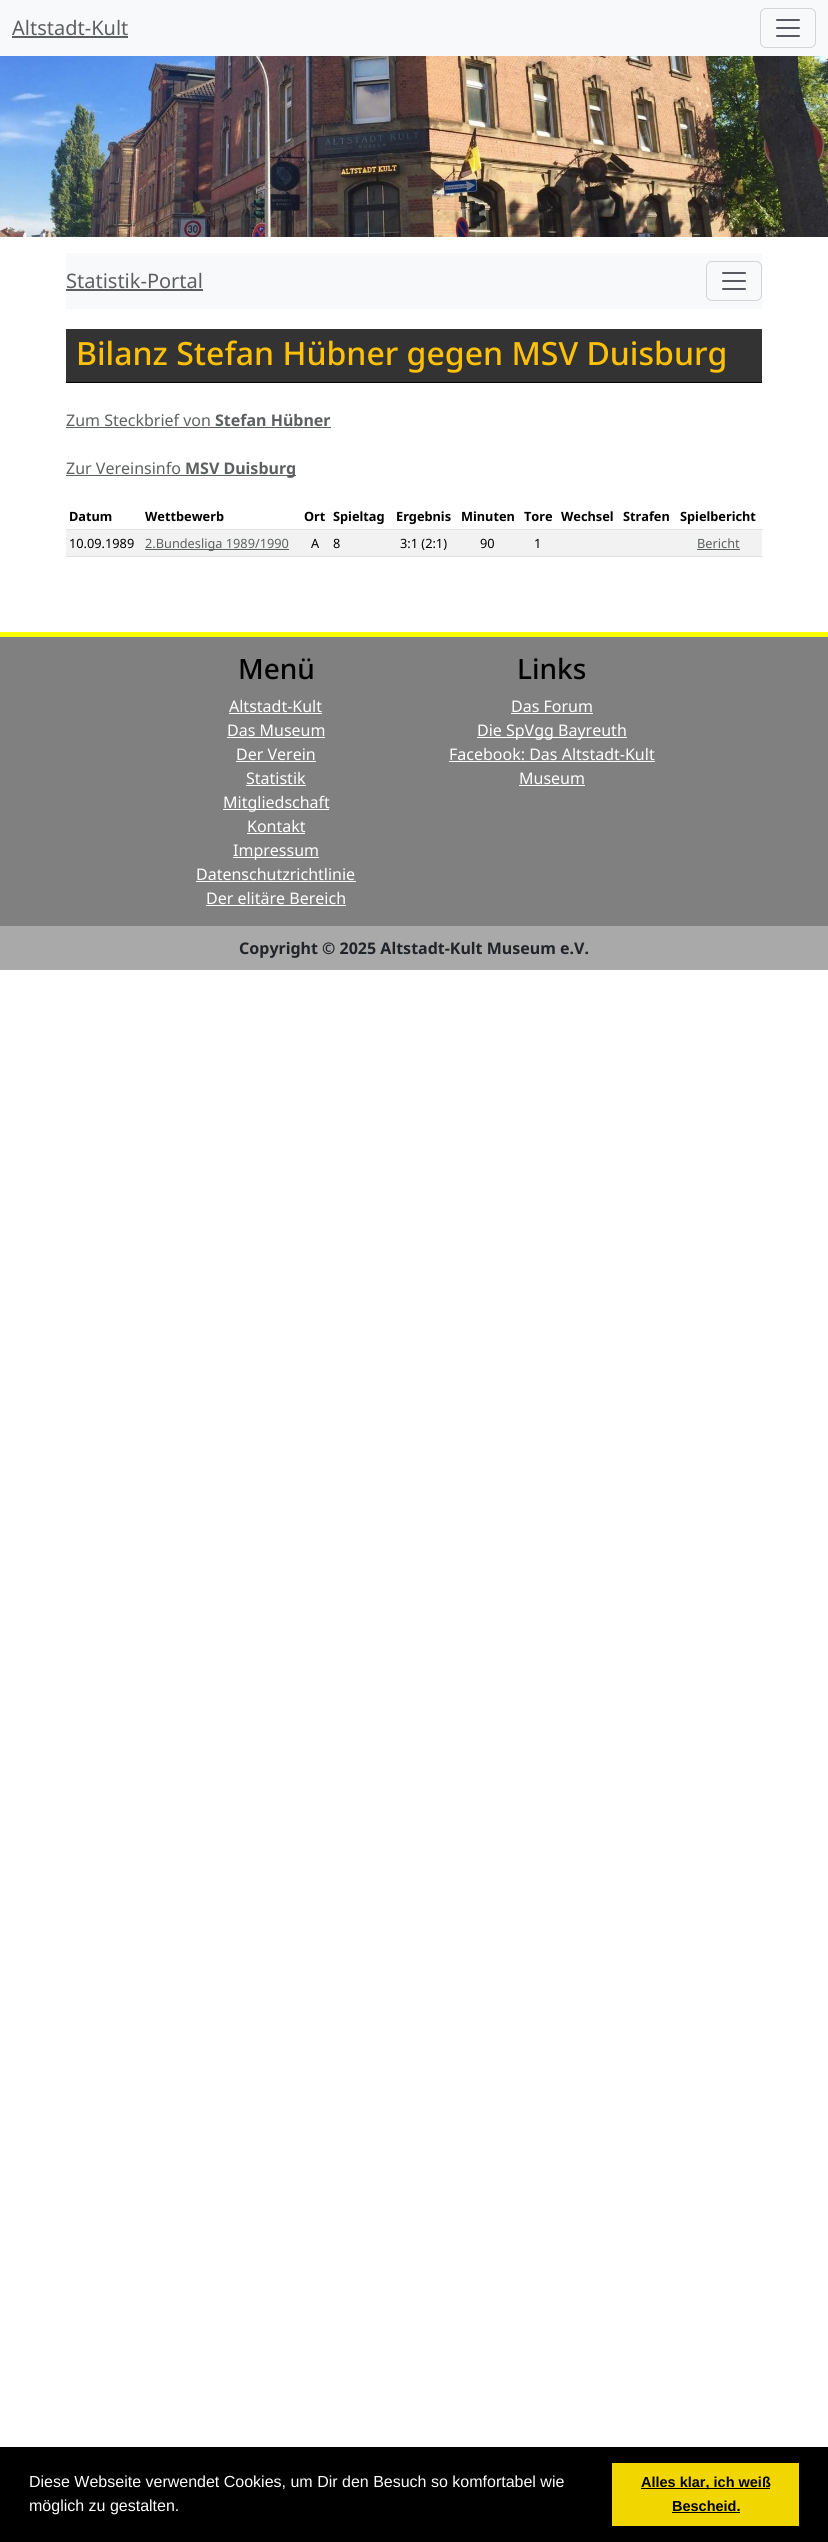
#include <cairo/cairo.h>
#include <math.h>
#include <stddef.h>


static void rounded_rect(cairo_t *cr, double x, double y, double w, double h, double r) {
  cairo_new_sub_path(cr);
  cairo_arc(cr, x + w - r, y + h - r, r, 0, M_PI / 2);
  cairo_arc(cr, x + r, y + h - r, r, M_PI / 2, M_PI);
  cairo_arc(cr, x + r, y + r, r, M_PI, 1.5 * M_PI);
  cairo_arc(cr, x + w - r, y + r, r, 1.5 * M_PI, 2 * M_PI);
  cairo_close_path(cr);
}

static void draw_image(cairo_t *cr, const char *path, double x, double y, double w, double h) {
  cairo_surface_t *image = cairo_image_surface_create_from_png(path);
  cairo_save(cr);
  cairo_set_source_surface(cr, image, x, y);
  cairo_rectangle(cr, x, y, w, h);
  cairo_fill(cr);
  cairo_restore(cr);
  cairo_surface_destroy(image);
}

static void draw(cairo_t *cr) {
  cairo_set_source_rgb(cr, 1, 1, 1);
  cairo_paint(cr);
  cairo_set_source_rgb(cr, 248 / 255.0, 249 / 255.0, 250 / 255.0);
  cairo_rectangle(cr, 0, 0, 828, 56);
  cairo_fill(cr);
  cairo_set_source_rgb(cr, 93 / 255.0, 96 / 255.0, 97 / 255.0);
  cairo_rectangle(cr, 12, 36, 116, 2);
  cairo_fill(cr);
  rounded_rect(cr, 760.5, 8.5, 55, 39, 5.5);
  cairo_set_source_rgb(cr, 211 / 255.0, 212 / 255.0, 213 / 255.0);
  cairo_set_line_width(cr, 1);
  cairo_stroke(cr);
  draw_image(cr, "images/1.png", 776, 19, 24, 18);
  draw_image(cr, "images/2.png", 0, 56, 828, 181);
  cairo_set_source_rgb(cr, 248 / 255.0, 249 / 255.0, 250 / 255.0);
  cairo_rectangle(cr, 66, 253, 696, 56);
  cairo_fill(cr);
  cairo_set_source_rgb(cr, 93 / 255.0, 96 / 255.0, 97 / 255.0);
  cairo_rectangle(cr, 66, 289, 137, 2);
  cairo_fill(cr);
  rounded_rect(cr, 706.5, 261.5, 55, 39, 5.5);
  cairo_set_source_rgb(cr, 211 / 255.0, 212 / 255.0, 213 / 255.0);
  cairo_stroke(cr);
  draw_image(cr, "images/1.png", 722, 272, 24, 18);
  cairo_set_source_rgb(cr, 51 / 255.0, 51 / 255.0, 51 / 255.0);
  cairo_rectangle(cr, 66, 329, 696, 53);
  cairo_fill(cr);
  cairo_set_source_rgb(cr, 0, 0, 0);
  cairo_rectangle(cr, 66, 382, 696, 1);
  cairo_fill(cr);
  cairo_set_source_rgb(cr, 93 / 255.0, 96 / 255.0, 97 / 255.0);
  cairo_rectangle(cr, 66, 427, 265, 1);
  cairo_fill(cr);
  cairo_rectangle(cr, 66, 475, 230, 1);
  cairo_fill(cr);
  cairo_set_source_rgb(cr, 222 / 255.0, 226 / 255.0, 230 / 255.0);
  cairo_rectangle(cr, 66, 529, 697, 1);
  cairo_fill(cr);
  cairo_set_source_rgb(cr, 242 / 255.0, 242 / 255.0, 242 / 255.0);
  cairo_rectangle(cr, 66, 530, 696, 26);
  cairo_fill(cr);
  cairo_set_source_rgb(cr, 93 / 255.0, 96 / 255.0, 97 / 255.0);
  cairo_rectangle(cr, 145, 549, 144, 1);
  cairo_fill(cr);
  cairo_set_source_rgb(cr, 222 / 255.0, 226 / 255.0, 230 / 255.0);
  cairo_rectangle(cr, 66, 556, 697, 1);
  cairo_fill(cr);
  cairo_set_source_rgb(cr, 93 / 255.0, 96 / 255.0, 97 / 255.0);
  cairo_rectangle(cr, 697, 549, 43, 1);
  cairo_fill(cr);
  cairo_set_source_rgb(cr, 128 / 255.0, 128 / 255.0, 128 / 255.0);
  cairo_rectangle(cr, 0, 637, 828, 289);
  cairo_fill(cr);
  cairo_set_source_rgb(cr, 1, 1, 0);
  cairo_rectangle(cr, 0, 632, 828, 5);
  cairo_fill(cr);
  cairo_set_source_rgb(cr, 1, 1, 1);
  cairo_rectangle(cr, 229, 713, 93, 1);
  cairo_fill(cr);
  cairo_rectangle(cr, 227, 737, 98, 1);
  cairo_fill(cr);
  cairo_rectangle(cr, 236, 761, 80, 1);
  cairo_fill(cr);
  cairo_rectangle(cr, 246, 785, 60, 1);
  cairo_fill(cr);
  cairo_rectangle(cr, 223, 809, 106, 1);
  cairo_fill(cr);
  cairo_rectangle(cr, 247, 833, 58, 1);
  cairo_fill(cr);
  cairo_rectangle(cr, 233, 857, 86, 1);
  cairo_fill(cr);
  cairo_rectangle(cr, 196, 881, 160, 1);
  cairo_fill(cr);
  cairo_rectangle(cr, 206, 905, 140, 1);
  cairo_fill(cr);
  cairo_rectangle(cr, 511, 713, 82, 1);
  cairo_fill(cr);
  cairo_rectangle(cr, 477, 737, 150, 1);
  cairo_fill(cr);
  cairo_rectangle(cr, 449, 761, 206, 1);
  cairo_fill(cr);
  cairo_rectangle(cr, 519, 785, 66, 1);
  cairo_fill(cr);
  cairo_set_source_rgb(cr, 169 / 255.0, 169 / 255.0, 169 / 255.0);
  cairo_rectangle(cr, 0, 926, 828, 44);
  cairo_fill(cr);
  cairo_set_source_rgb(cr, 0, 0, 0);
  cairo_rectangle(cr, 0, 2447, 828, 95);
  cairo_fill(cr);
  cairo_set_source_rgb(cr, 241 / 255.0, 214 / 255.0, 0);
  cairo_rectangle(cr, 612, 2463, 187, 63);
  cairo_fill(cr);
  cairo_set_source_rgb(cr, 0, 0, 0);
  cairo_rectangle(cr, 641, 2488, 129, 1);
  cairo_fill(cr);
  cairo_rectangle(cr, 672, 2512, 68, 1);
  cairo_fill(cr);
  cairo_select_font_face(cr, "Noto Sans", CAIRO_FONT_SLANT_NORMAL, CAIRO_FONT_WEIGHT_NORMAL);
  cairo_set_font_size(cr, 20);
  cairo_set_source_rgb(cr, 93 / 255.0, 96 / 255.0, 97 / 255.0);
  cairo_move_to(cr, 12, 35);
  cairo_show_text(cr, "Altstadt-Kult");
  cairo_move_to(cr, 66, 288);
  cairo_show_text(cr, "Statistik-Portal");
  cairo_select_font_face(cr, "Noto Sans Medium", CAIRO_FONT_SLANT_NORMAL, CAIRO_FONT_WEIGHT_NORMAL);
  cairo_set_font_size(cr, 32);
  cairo_set_source_rgb(cr, 1, 193 / 255.0, 7 / 255.0);
  cairo_move_to(cr, 76, 365);
  cairo_show_text(cr, "Bilanz Stefan Hübner gegen MSV Duisburg");
  cairo_select_font_face(cr, "Noto Sans", CAIRO_FONT_SLANT_NORMAL, CAIRO_FONT_WEIGHT_NORMAL);
  cairo_set_font_size(cr, 16);
  cairo_set_source_rgb(cr, 93 / 255.0, 96 / 255.0, 97 / 255.0);
  cairo_move_to(cr, 66, 426);
  cairo_show_text(cr, "Zum Steckbrief von");
  cairo_select_font_face(cr, "Noto Sans", CAIRO_FONT_SLANT_NORMAL, CAIRO_FONT_WEIGHT_BOLD);
  cairo_move_to(cr, 215, 426);
  cairo_show_text(cr, "Stefan Hübner");
  cairo_select_font_face(cr, "Noto Sans", CAIRO_FONT_SLANT_NORMAL, CAIRO_FONT_WEIGHT_NORMAL);
  cairo_move_to(cr, 66, 474);
  cairo_show_text(cr, "Zur Vereinsinfo");
  cairo_select_font_face(cr, "Noto Sans", CAIRO_FONT_SLANT_NORMAL, CAIRO_FONT_WEIGHT_BOLD);
  cairo_move_to(cr, 185, 474);
  cairo_show_text(cr, "MSV Duisburg");
  cairo_set_font_size(cr, 12.75);
  cairo_set_source_rgb(cr, 0, 0, 0);
  cairo_move_to(cr, 69, 521);
  cairo_show_text(cr, "Datum");
  cairo_move_to(cr, 145, 521);
  cairo_show_text(cr, "Wettbewerb");
  cairo_move_to(cr, 304, 521);
  cairo_show_text(cr, "Ort");
  cairo_move_to(cr, 333, 521);
  cairo_show_text(cr, "Spieltag");
  cairo_move_to(cr, 396, 521);
  cairo_show_text(cr, "Ergebnis");
  cairo_move_to(cr, 461, 521);
  cairo_show_text(cr, "Minuten");
  cairo_move_to(cr, 524, 521);
  cairo_show_text(cr, "Tore");
  cairo_move_to(cr, 561, 521);
  cairo_show_text(cr, "Wechsel");
  cairo_move_to(cr, 623, 521);
  cairo_show_text(cr, "Strafen");
  cairo_move_to(cr, 680, 521);
  cairo_show_text(cr, "Spielbericht");
  cairo_select_font_face(cr, "Noto Sans", CAIRO_FONT_SLANT_NORMAL, CAIRO_FONT_WEIGHT_NORMAL);
  cairo_move_to(cr, 69, 548);
  cairo_show_text(cr, "10.09.1989");
  cairo_set_source_rgb(cr, 93 / 255.0, 96 / 255.0, 97 / 255.0);
  cairo_move_to(cr, 145, 548);
  cairo_show_text(cr, "2.Bundesliga 1989/1990");
  cairo_set_source_rgb(cr, 0, 0, 0);
  cairo_move_to(cr, 311, 548);
  cairo_show_text(cr, "A");
  cairo_move_to(cr, 333, 548);
  cairo_show_text(cr, "8");
  cairo_move_to(cr, 400, 548);
  cairo_show_text(cr, "3:1 (2:1)");
  cairo_move_to(cr, 480, 548);
  cairo_show_text(cr, "90");
  cairo_move_to(cr, 534, 548);
  cairo_show_text(cr, "1");
  cairo_set_source_rgb(cr, 93 / 255.0, 96 / 255.0, 97 / 255.0);
  cairo_move_to(cr, 697, 548);
  cairo_show_text(cr, "Bericht");
  cairo_select_font_face(cr, "Noto Sans Medium", CAIRO_FONT_SLANT_NORMAL, CAIRO_FONT_WEIGHT_NORMAL);
  cairo_set_font_size(cr, 28);
  cairo_set_source_rgb(cr, 0, 0, 0);
  cairo_move_to(cr, 238, 679);
  cairo_show_text(cr, "Menü");
  cairo_select_font_face(cr, "Noto Sans", CAIRO_FONT_SLANT_NORMAL, CAIRO_FONT_WEIGHT_NORMAL);
  cairo_set_font_size(cr, 16);
  cairo_set_source_rgb(cr, 1, 1, 1);
  cairo_move_to(cr, 229, 712);
  cairo_show_text(cr, "Altstadt-Kult");
  cairo_move_to(cr, 227, 736);
  cairo_show_text(cr, "Das Museum");
  cairo_move_to(cr, 236, 760);
  cairo_show_text(cr, "Der Verein");
  cairo_move_to(cr, 246, 784);
  cairo_show_text(cr, "Statistik");
  cairo_move_to(cr, 223, 808);
  cairo_show_text(cr, "Mitgliedschaft");
  cairo_move_to(cr, 247, 832);
  cairo_show_text(cr, "Kontakt");
  cairo_move_to(cr, 233, 856);
  cairo_show_text(cr, "Impressum");
  cairo_move_to(cr, 196, 880);
  cairo_show_text(cr, "Datenschutzrichtlinie");
  cairo_move_to(cr, 206, 904);
  cairo_show_text(cr, "Der elitäre Bereich");
  cairo_select_font_face(cr, "Noto Sans Medium", CAIRO_FONT_SLANT_NORMAL, CAIRO_FONT_WEIGHT_NORMAL);
  cairo_set_font_size(cr, 28);
  cairo_set_source_rgb(cr, 0, 0, 0);
  cairo_move_to(cr, 517, 679);
  cairo_show_text(cr, "Links");
  cairo_select_font_face(cr, "Noto Sans", CAIRO_FONT_SLANT_NORMAL, CAIRO_FONT_WEIGHT_NORMAL);
  cairo_set_font_size(cr, 16);
  cairo_set_source_rgb(cr, 1, 1, 1);
  cairo_move_to(cr, 511, 712);
  cairo_show_text(cr, "Das Forum");
  cairo_move_to(cr, 477, 736);
  cairo_show_text(cr, "Die SpVgg Bayreuth");
  cairo_move_to(cr, 449, 760);
  cairo_show_text(cr, "Facebook: Das Altstadt-Kult");
  cairo_move_to(cr, 519, 784);
  cairo_show_text(cr, "Museum");
  cairo_select_font_face(cr, "Noto Sans", CAIRO_FONT_SLANT_NORMAL, CAIRO_FONT_WEIGHT_BOLD);
  cairo_set_source_rgb(cr, 33 / 255.0, 37 / 255.0, 41 / 255.0);
  cairo_move_to(cr, 239, 954);
  cairo_show_text(cr, "Copyright © 2025 Altstadt-Kult Museum e.V.");
  cairo_select_font_face(cr, "Liberation Sans", CAIRO_FONT_SLANT_NORMAL, CAIRO_FONT_WEIGHT_NORMAL);
  cairo_set_source_rgb(cr, 1, 1, 1);
  cairo_move_to(cr, 29, 2487);
  cairo_show_text(cr, "Diese Webseite verwendet Cookies, um Dir den Besuch so komfortabel wie");
  cairo_move_to(cr, 29, 2511);
  cairo_show_text(cr, "möglich zu gestalten.");
  cairo_select_font_face(cr, "Liberation Sans", CAIRO_FONT_SLANT_NORMAL, CAIRO_FONT_WEIGHT_BOLD);
  cairo_set_font_size(cr, 14.5);
  cairo_set_source_rgb(cr, 0, 0, 0);
  cairo_move_to(cr, 641, 2487);
  cairo_show_text(cr, "Alles klar, ich weiß");
  cairo_move_to(cr, 672, 2511);
  cairo_show_text(cr, "Bescheid.");
}

int main(void) {
  cairo_surface_t *surface = cairo_image_surface_create(CAIRO_FORMAT_RGB24, 828, 2542);
  cairo_t *cr = cairo_create(surface);
  cairo_font_options_t *options = cairo_font_options_create();
  cairo_font_options_set_hint_metrics(options, CAIRO_HINT_METRICS_OFF);
  cairo_font_options_set_hint_style(options, CAIRO_HINT_STYLE_NONE);
  cairo_set_font_options(cr, options);
  cairo_set_miter_limit(cr, 4);
  draw(cr);
  cairo_surface_write_to_png(surface, "out.png");
  cairo_font_options_destroy(options);
  cairo_destroy(cr);
  cairo_surface_destroy(surface);
  return 0;
}
